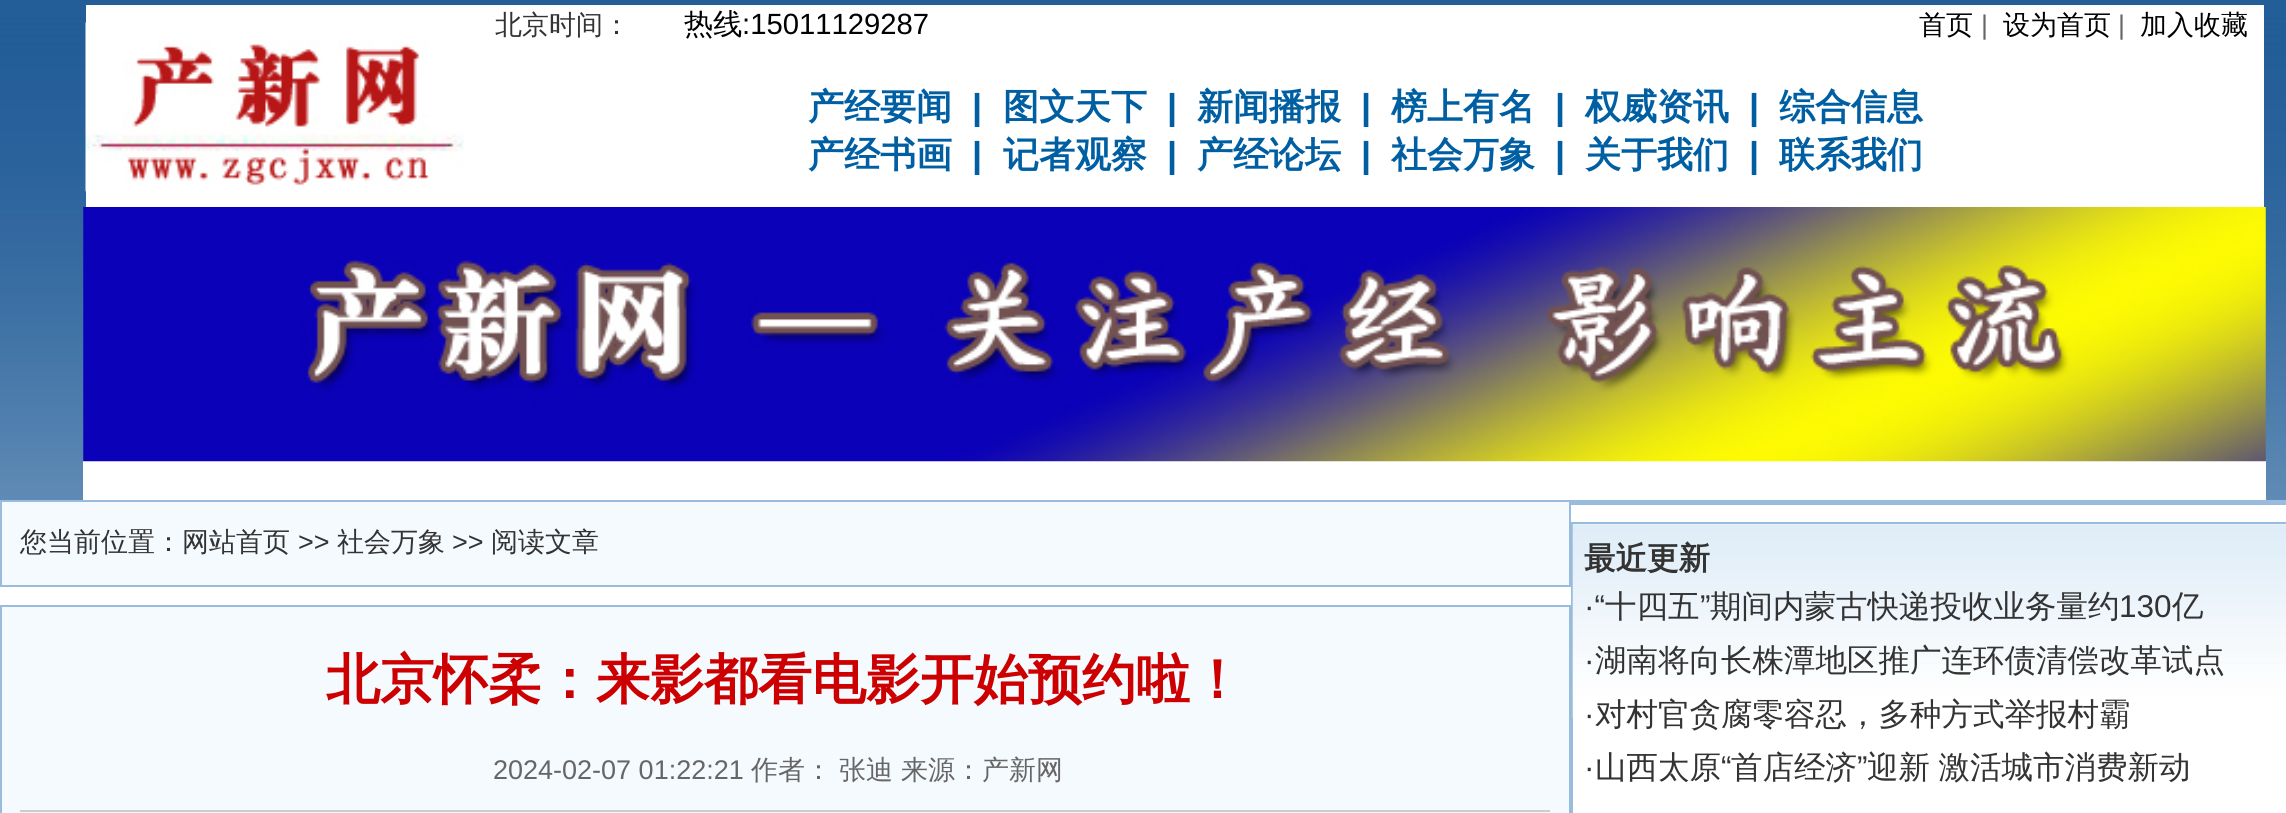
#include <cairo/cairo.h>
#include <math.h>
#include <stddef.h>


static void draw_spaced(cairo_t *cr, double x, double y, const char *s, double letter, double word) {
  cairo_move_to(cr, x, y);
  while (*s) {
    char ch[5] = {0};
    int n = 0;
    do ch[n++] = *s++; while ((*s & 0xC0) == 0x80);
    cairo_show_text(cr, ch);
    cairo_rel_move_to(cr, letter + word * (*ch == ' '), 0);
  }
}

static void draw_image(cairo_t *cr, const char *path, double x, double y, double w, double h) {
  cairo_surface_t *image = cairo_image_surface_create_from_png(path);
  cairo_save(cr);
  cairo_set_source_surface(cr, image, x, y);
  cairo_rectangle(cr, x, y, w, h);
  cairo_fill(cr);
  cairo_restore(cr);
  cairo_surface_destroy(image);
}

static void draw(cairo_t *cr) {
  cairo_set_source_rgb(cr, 1, 1, 1);
  cairo_paint(cr);
  draw_image(cr, "images/1.png", 0, 0, 2286, 500);
  cairo_set_source_rgb(cr, 1, 1, 1);
  cairo_rectangle(cr, 86, 5, 2178, 202);
  cairo_fill(cr);
  draw_image(cr, "images/2.png", 85, 22, 379, 170);
  cairo_rectangle(cr, 83, 461, 2183, 39);
  cairo_fill(cr);
  draw_image(cr, "images/3.png", 83, 207, 2183, 255);
  cairo_set_source_rgb(cr, 245 / 255.0, 250 / 255.0, 254 / 255.0);
  cairo_rectangle(cr, 1, 501, 1569, 85);
  cairo_fill_preserve(cr);
  cairo_set_source_rgb(cr, 153 / 255.0, 187 / 255.0, 221 / 255.0);
  cairo_stroke(cr);
  cairo_set_source_rgb(cr, 245 / 255.0, 250 / 255.0, 254 / 255.0);
  cairo_rectangle(cr, 1, 606, 1569, 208);
  cairo_fill_preserve(cr);
  cairo_set_source_rgb(cr, 153 / 255.0, 187 / 255.0, 221 / 255.0);
  cairo_stroke(cr);
  cairo_set_source_rgb(cr, 204 / 255.0, 204 / 255.0, 204 / 255.0);
  cairo_rectangle(cr, 20, 810, 1530, 2);
  cairo_fill(cr);
  cairo_set_source_rgb(cr, 153 / 255.0, 187 / 255.0, 221 / 255.0);
  cairo_rectangle(cr, 1571, 500, 715, 5);
  cairo_fill(cr);
  cairo_rectangle(cr, 1572, 523, 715, 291);
  cairo_stroke(cr);
  draw_image(cr, "images/4.png", 1572, 524, 714, 194);
  cairo_select_font_face(cr, "WenQuanYi Zen Hei Medium", CAIRO_FONT_SLANT_NORMAL, CAIRO_FONT_WEIGHT_NORMAL);
  cairo_set_font_size(cr, 27);
  cairo_set_source_rgb(cr, 51 / 255.0, 51 / 255.0, 51 / 255.0);
  cairo_move_to(cr, 495, 34);
  cairo_show_text(cr, "北京时间：");
  cairo_set_font_size(cr, 29.25);
  cairo_set_source_rgb(cr, 0, 0, 0);
  cairo_move_to(cr, 684, 34);
  cairo_show_text(cr, "热线");
  cairo_select_font_face(cr, "Liberation Sans", CAIRO_FONT_SLANT_NORMAL, CAIRO_FONT_WEIGHT_NORMAL);
  cairo_move_to(cr, 742, 34);
  cairo_show_text(cr, ":15011129287");
  cairo_select_font_face(cr, "WenQuanYi Zen Hei Medium", CAIRO_FONT_SLANT_NORMAL, CAIRO_FONT_WEIGHT_NORMAL);
  cairo_set_font_size(cr, 27);
  cairo_move_to(cr, 1919, 34);
  cairo_show_text(cr, "首页");
  cairo_select_font_face(cr, "Liberation Sans", CAIRO_FONT_SLANT_NORMAL, CAIRO_FONT_WEIGHT_NORMAL);
  cairo_set_source_rgb(cr, 102 / 255.0, 102 / 255.0, 102 / 255.0);
  cairo_move_to(cr, 1981, 34);
  cairo_show_text(cr, "|");
  cairo_select_font_face(cr, "WenQuanYi Zen Hei Medium", CAIRO_FONT_SLANT_NORMAL, CAIRO_FONT_WEIGHT_NORMAL);
  cairo_set_source_rgb(cr, 0, 0, 0);
  cairo_move_to(cr, 2003, 34);
  cairo_show_text(cr, "设为首页");
  cairo_select_font_face(cr, "Liberation Sans", CAIRO_FONT_SLANT_NORMAL, CAIRO_FONT_WEIGHT_NORMAL);
  cairo_set_source_rgb(cr, 102 / 255.0, 102 / 255.0, 102 / 255.0);
  cairo_move_to(cr, 2118, 34);
  cairo_show_text(cr, "|");
  cairo_select_font_face(cr, "WenQuanYi Zen Hei Medium", CAIRO_FONT_SLANT_NORMAL, CAIRO_FONT_WEIGHT_NORMAL);
  cairo_set_source_rgb(cr, 0, 0, 0);
  cairo_move_to(cr, 2140, 34);
  cairo_show_text(cr, "加入收藏");
  cairo_select_font_face(cr, "WenQuanYi Zen Hei", CAIRO_FONT_SLANT_NORMAL, CAIRO_FONT_WEIGHT_BOLD);
  cairo_set_font_size(cr, 36);
  cairo_set_source_rgb(cr, 0, 95 / 255.0, 162 / 255.0);
  cairo_move_to(cr, 808, 119);
  cairo_show_text(cr, "产经要闻");
  cairo_select_font_face(cr, "Liberation Sans", CAIRO_FONT_SLANT_NORMAL, CAIRO_FONT_WEIGHT_BOLD);
  cairo_move_to(cr, 972, 119);
  cairo_show_text(cr, "|");
  cairo_select_font_face(cr, "WenQuanYi Zen Hei", CAIRO_FONT_SLANT_NORMAL, CAIRO_FONT_WEIGHT_BOLD);
  cairo_move_to(cr, 1003, 119);
  cairo_show_text(cr, "图文天下");
  cairo_select_font_face(cr, "Liberation Sans", CAIRO_FONT_SLANT_NORMAL, CAIRO_FONT_WEIGHT_BOLD);
  cairo_move_to(cr, 1167, 119);
  cairo_show_text(cr, "|");
  cairo_select_font_face(cr, "WenQuanYi Zen Hei", CAIRO_FONT_SLANT_NORMAL, CAIRO_FONT_WEIGHT_BOLD);
  cairo_move_to(cr, 1197, 119);
  cairo_show_text(cr, "新闻播报");
  cairo_select_font_face(cr, "Liberation Sans", CAIRO_FONT_SLANT_NORMAL, CAIRO_FONT_WEIGHT_BOLD);
  cairo_move_to(cr, 1361, 119);
  cairo_show_text(cr, "|");
  cairo_select_font_face(cr, "WenQuanYi Zen Hei", CAIRO_FONT_SLANT_NORMAL, CAIRO_FONT_WEIGHT_BOLD);
  cairo_move_to(cr, 1391, 119);
  cairo_show_text(cr, "榜上有名");
  cairo_select_font_face(cr, "Liberation Sans", CAIRO_FONT_SLANT_NORMAL, CAIRO_FONT_WEIGHT_BOLD);
  cairo_move_to(cr, 1555, 119);
  cairo_show_text(cr, "|");
  cairo_select_font_face(cr, "WenQuanYi Zen Hei", CAIRO_FONT_SLANT_NORMAL, CAIRO_FONT_WEIGHT_BOLD);
  cairo_move_to(cr, 1585, 119);
  cairo_show_text(cr, "权威资讯");
  cairo_select_font_face(cr, "Liberation Sans", CAIRO_FONT_SLANT_NORMAL, CAIRO_FONT_WEIGHT_BOLD);
  cairo_move_to(cr, 1749, 119);
  cairo_show_text(cr, "|");
  cairo_select_font_face(cr, "WenQuanYi Zen Hei", CAIRO_FONT_SLANT_NORMAL, CAIRO_FONT_WEIGHT_BOLD);
  cairo_move_to(cr, 1779, 119);
  cairo_show_text(cr, "综合信息");
  cairo_move_to(cr, 808, 167);
  cairo_show_text(cr, "产经书画");
  cairo_select_font_face(cr, "Liberation Sans", CAIRO_FONT_SLANT_NORMAL, CAIRO_FONT_WEIGHT_BOLD);
  cairo_move_to(cr, 972, 167);
  cairo_show_text(cr, "|");
  cairo_select_font_face(cr, "WenQuanYi Zen Hei", CAIRO_FONT_SLANT_NORMAL, CAIRO_FONT_WEIGHT_BOLD);
  cairo_move_to(cr, 1003, 167);
  cairo_show_text(cr, "记者观察");
  cairo_select_font_face(cr, "Liberation Sans", CAIRO_FONT_SLANT_NORMAL, CAIRO_FONT_WEIGHT_BOLD);
  cairo_move_to(cr, 1167, 167);
  cairo_show_text(cr, "|");
  cairo_select_font_face(cr, "WenQuanYi Zen Hei", CAIRO_FONT_SLANT_NORMAL, CAIRO_FONT_WEIGHT_BOLD);
  cairo_move_to(cr, 1197, 167);
  cairo_show_text(cr, "产经论坛");
  cairo_select_font_face(cr, "Liberation Sans", CAIRO_FONT_SLANT_NORMAL, CAIRO_FONT_WEIGHT_BOLD);
  cairo_move_to(cr, 1361, 167);
  cairo_show_text(cr, "|");
  cairo_select_font_face(cr, "WenQuanYi Zen Hei", CAIRO_FONT_SLANT_NORMAL, CAIRO_FONT_WEIGHT_BOLD);
  cairo_move_to(cr, 1391, 167);
  cairo_show_text(cr, "社会万象");
  cairo_select_font_face(cr, "Liberation Sans", CAIRO_FONT_SLANT_NORMAL, CAIRO_FONT_WEIGHT_BOLD);
  cairo_move_to(cr, 1555, 167);
  cairo_show_text(cr, "|");
  cairo_select_font_face(cr, "WenQuanYi Zen Hei", CAIRO_FONT_SLANT_NORMAL, CAIRO_FONT_WEIGHT_BOLD);
  cairo_move_to(cr, 1585, 167);
  cairo_show_text(cr, "关于我们");
  cairo_select_font_face(cr, "Liberation Sans", CAIRO_FONT_SLANT_NORMAL, CAIRO_FONT_WEIGHT_BOLD);
  cairo_move_to(cr, 1749, 167);
  cairo_show_text(cr, "|");
  cairo_select_font_face(cr, "WenQuanYi Zen Hei", CAIRO_FONT_SLANT_NORMAL, CAIRO_FONT_WEIGHT_BOLD);
  cairo_move_to(cr, 1779, 167);
  cairo_show_text(cr, "联系我们");
  cairo_select_font_face(cr, "WenQuanYi Zen Hei Medium", CAIRO_FONT_SLANT_NORMAL, CAIRO_FONT_WEIGHT_NORMAL);
  cairo_set_font_size(cr, 27);
  cairo_set_source_rgb(cr, 51 / 255.0, 51 / 255.0, 51 / 255.0);
  cairo_move_to(cr, 20, 551);
  cairo_show_text(cr, "您当前位置：网站首页");
  cairo_select_font_face(cr, "Liberation Sans", CAIRO_FONT_SLANT_NORMAL, CAIRO_FONT_WEIGHT_NORMAL);
  cairo_move_to(cr, 298, 551);
  cairo_show_text(cr, ">>");
  cairo_select_font_face(cr, "WenQuanYi Zen Hei Medium", CAIRO_FONT_SLANT_NORMAL, CAIRO_FONT_WEIGHT_NORMAL);
  cairo_move_to(cr, 337, 551);
  cairo_show_text(cr, "社会万象");
  cairo_select_font_face(cr, "Liberation Sans", CAIRO_FONT_SLANT_NORMAL, CAIRO_FONT_WEIGHT_NORMAL);
  cairo_move_to(cr, 452, 551);
  cairo_show_text(cr, ">>");
  cairo_select_font_face(cr, "WenQuanYi Zen Hei Medium", CAIRO_FONT_SLANT_NORMAL, CAIRO_FONT_WEIGHT_NORMAL);
  cairo_move_to(cr, 491, 551);
  cairo_show_text(cr, "阅读文章");
  cairo_select_font_face(cr, "WenQuanYi Zen Hei", CAIRO_FONT_SLANT_NORMAL, CAIRO_FONT_WEIGHT_BOLD);
  cairo_set_font_size(cr, 54);
  cairo_set_source_rgb(cr, 204 / 255.0, 0, 0);
  cairo_move_to(cr, 326, 698);
  cairo_show_text(cr, "北京怀柔：来影都看电影开始预约啦！");
  cairo_select_font_face(cr, "Liberation Sans", CAIRO_FONT_SLANT_NORMAL, CAIRO_FONT_WEIGHT_NORMAL);
  cairo_set_font_size(cr, 27);
  cairo_set_source_rgb(cr, 102 / 255.0, 102 / 255.0, 102 / 255.0);
  cairo_move_to(cr, 493, 779);
  cairo_show_text(cr, "2024-02-07 01:22:21");
  cairo_select_font_face(cr, "WenQuanYi Zen Hei Medium", CAIRO_FONT_SLANT_NORMAL, CAIRO_FONT_WEIGHT_NORMAL);
  draw_spaced(cr, 751, 779, "作者： 张迪", 0, -1);
  cairo_move_to(cr, 901, 779);
  cairo_show_text(cr, "来源：产新网");
  cairo_select_font_face(cr, "WenQuanYi Zen Hei", CAIRO_FONT_SLANT_NORMAL, CAIRO_FONT_WEIGHT_BOLD);
  cairo_set_font_size(cr, 31.5);
  cairo_set_source_rgb(cr, 51 / 255.0, 51 / 255.0, 51 / 255.0);
  cairo_move_to(cr, 1584, 569);
  cairo_show_text(cr, "最近更新");
  cairo_select_font_face(cr, "Liberation Sans", CAIRO_FONT_SLANT_NORMAL, CAIRO_FONT_WEIGHT_NORMAL);
  cairo_move_to(cr, 1584, 617);
  cairo_show_text(cr, "·“");
  cairo_select_font_face(cr, "WenQuanYi Zen Hei Medium", CAIRO_FONT_SLANT_NORMAL, CAIRO_FONT_WEIGHT_NORMAL);
  cairo_move_to(cr, 1605, 617);
  cairo_show_text(cr, "十四五");
  cairo_select_font_face(cr, "Liberation Sans", CAIRO_FONT_SLANT_NORMAL, CAIRO_FONT_WEIGHT_NORMAL);
  cairo_move_to(cr, 1700, 617);
  cairo_show_text(cr, "”");
  cairo_select_font_face(cr, "WenQuanYi Zen Hei Medium", CAIRO_FONT_SLANT_NORMAL, CAIRO_FONT_WEIGHT_NORMAL);
  cairo_move_to(cr, 1710, 617);
  cairo_show_text(cr, "期间内蒙古快递投收业务量约");
  cairo_select_font_face(cr, "Liberation Sans", CAIRO_FONT_SLANT_NORMAL, CAIRO_FONT_WEIGHT_NORMAL);
  cairo_move_to(cr, 2119, 617);
  cairo_show_text(cr, "130");
  cairo_select_font_face(cr, "WenQuanYi Zen Hei Medium", CAIRO_FONT_SLANT_NORMAL, CAIRO_FONT_WEIGHT_NORMAL);
  cairo_move_to(cr, 2172, 617);
  cairo_show_text(cr, "亿");
  cairo_select_font_face(cr, "Liberation Sans", CAIRO_FONT_SLANT_NORMAL, CAIRO_FONT_WEIGHT_NORMAL);
  cairo_move_to(cr, 1584, 671);
  cairo_show_text(cr, "·");
  cairo_select_font_face(cr, "WenQuanYi Zen Hei Medium", CAIRO_FONT_SLANT_NORMAL, CAIRO_FONT_WEIGHT_NORMAL);
  cairo_move_to(cr, 1595, 671);
  cairo_show_text(cr, "湖南将向长株潭地区推广连环债清偿改革试点");
  cairo_select_font_face(cr, "Liberation Sans", CAIRO_FONT_SLANT_NORMAL, CAIRO_FONT_WEIGHT_NORMAL);
  cairo_move_to(cr, 1584, 725);
  cairo_show_text(cr, "·");
  cairo_select_font_face(cr, "WenQuanYi Zen Hei Medium", CAIRO_FONT_SLANT_NORMAL, CAIRO_FONT_WEIGHT_NORMAL);
  cairo_move_to(cr, 1595, 725);
  cairo_show_text(cr, "对村官贪腐零容忍，多种方式举报村霸");
  cairo_move_to(cr, 1595, 778);
  cairo_show_text(cr, "山西太原");
  cairo_select_font_face(cr, "Liberation Sans", CAIRO_FONT_SLANT_NORMAL, CAIRO_FONT_WEIGHT_NORMAL);
  cairo_move_to(cr, 1721, 778);
  cairo_show_text(cr, "“");
  cairo_select_font_face(cr, "WenQuanYi Zen Hei Medium", CAIRO_FONT_SLANT_NORMAL, CAIRO_FONT_WEIGHT_NORMAL);
  cairo_move_to(cr, 1731, 778);
  cairo_show_text(cr, "首店经济");
  cairo_select_font_face(cr, "Liberation Sans", CAIRO_FONT_SLANT_NORMAL, CAIRO_FONT_WEIGHT_NORMAL);
  cairo_move_to(cr, 1857, 778);
  cairo_show_text(cr, "”");
  cairo_select_font_face(cr, "WenQuanYi Zen Hei Medium", CAIRO_FONT_SLANT_NORMAL, CAIRO_FONT_WEIGHT_NORMAL);
  draw_spaced(cr, 1867, 778, "迎新 激活城市消费新动", 0, -1);
  cairo_select_font_face(cr, "Liberation Sans", CAIRO_FONT_SLANT_NORMAL, CAIRO_FONT_WEIGHT_NORMAL);
  cairo_move_to(cr, 1584, 778);
  cairo_show_text(cr, "·");
}

int main(void) {
  cairo_surface_t *surface = cairo_image_surface_create(CAIRO_FORMAT_RGB24, 2286, 813);
  cairo_t *cr = cairo_create(surface);
  cairo_font_options_t *options = cairo_font_options_create();
  cairo_font_options_set_hint_metrics(options, CAIRO_HINT_METRICS_OFF);
  cairo_font_options_set_hint_style(options, CAIRO_HINT_STYLE_NONE);
  cairo_set_font_options(cr, options);
  cairo_set_miter_limit(cr, 4);
  draw(cr);
  cairo_surface_write_to_png(surface, "out.png");
  cairo_font_options_destroy(options);
  cairo_destroy(cr);
  cairo_surface_destroy(surface);
  return 0;
}
